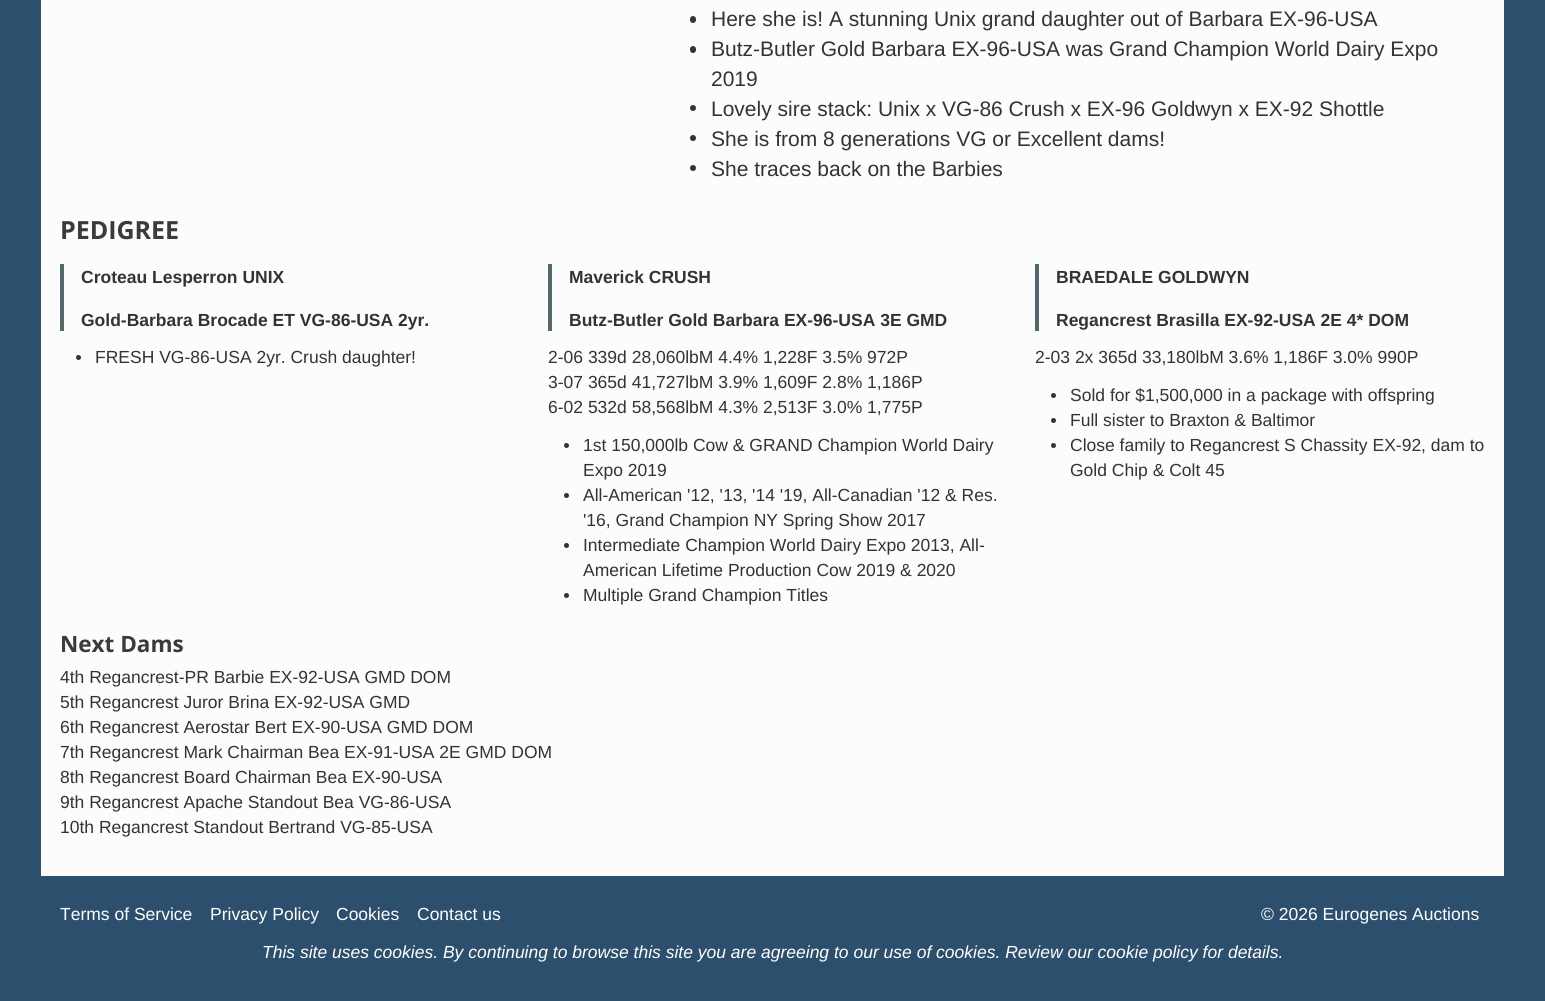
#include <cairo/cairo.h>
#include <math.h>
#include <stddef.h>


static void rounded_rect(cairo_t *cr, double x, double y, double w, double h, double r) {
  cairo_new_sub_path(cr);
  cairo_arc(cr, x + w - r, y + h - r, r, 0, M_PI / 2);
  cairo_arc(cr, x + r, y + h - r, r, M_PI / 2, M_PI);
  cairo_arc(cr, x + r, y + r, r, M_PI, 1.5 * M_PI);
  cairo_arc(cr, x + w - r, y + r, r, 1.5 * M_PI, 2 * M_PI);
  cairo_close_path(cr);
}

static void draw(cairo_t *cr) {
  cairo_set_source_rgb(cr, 44 / 255.0, 79 / 255.0, 109 / 255.0);
  cairo_paint(cr);
  cairo_set_source_rgb(cr, 252 / 255.0, 252 / 255.0, 252 / 255.0);
  cairo_rectangle(cr, 41, 0, 1463, 876);
  cairo_fill(cr);
  cairo_set_source_rgb(cr, 51 / 255.0, 51 / 255.0, 51 / 255.0);
  rounded_rect(cr, 690, 16, 6, 7, 3);
  cairo_fill(cr);
  rounded_rect(cr, 690, 46, 6, 7, 3);
  cairo_fill(cr);
  cairo_arc(cr, 693, 108, 3, 0, 2 * M_PI);
  cairo_fill(cr);
  cairo_arc(cr, 693, 138, 3, 0, 2 * M_PI);
  cairo_fill(cr);
  cairo_arc(cr, 693, 168, 3, 0, 2 * M_PI);
  cairo_fill(cr);
  cairo_set_source_rgb(cr, 83 / 255.0, 104 / 255.0, 107 / 255.0);
  cairo_rectangle(cr, 60, 264, 4, 67);
  cairo_fill(cr);
  cairo_set_source_rgb(cr, 51 / 255.0, 51 / 255.0, 51 / 255.0);
  cairo_arc(cr, 78.5, 357.5, 2.5, 0, 2 * M_PI);
  cairo_fill(cr);
  cairo_set_source_rgb(cr, 83 / 255.0, 104 / 255.0, 107 / 255.0);
  cairo_rectangle(cr, 548, 264, 4, 67);
  cairo_fill(cr);
  cairo_set_source_rgb(cr, 51 / 255.0, 51 / 255.0, 51 / 255.0);
  cairo_arc(cr, 566.5, 445.5, 2.5, 0, 2 * M_PI);
  cairo_fill(cr);
  cairo_arc(cr, 566.5, 495.5, 2.5, 0, 2 * M_PI);
  cairo_fill(cr);
  cairo_arc(cr, 566.5, 545.5, 2.5, 0, 2 * M_PI);
  cairo_fill(cr);
  cairo_arc(cr, 566.5, 595.5, 2.5, 0, 2 * M_PI);
  cairo_fill(cr);
  cairo_set_source_rgb(cr, 83 / 255.0, 104 / 255.0, 107 / 255.0);
  cairo_rectangle(cr, 1035, 264, 4, 67);
  cairo_fill(cr);
  cairo_set_source_rgb(cr, 51 / 255.0, 51 / 255.0, 51 / 255.0);
  cairo_arc(cr, 1053.5, 395.5, 2.5, 0, 2 * M_PI);
  cairo_fill(cr);
  cairo_arc(cr, 1053.5, 420.5, 2.5, 0, 2 * M_PI);
  cairo_fill(cr);
  cairo_arc(cr, 1053.5, 445.5, 2.5, 0, 2 * M_PI);
  cairo_fill(cr);
  cairo_select_font_face(cr, "Liberation Sans", CAIRO_FONT_SLANT_NORMAL, CAIRO_FONT_WEIGHT_NORMAL);
  cairo_set_font_size(cr, 21);
  cairo_move_to(cr, 711, 26);
  cairo_show_text(cr, "Here she is! A stunning Unix grand daughter out of Barbara EX-96-USA");
  cairo_move_to(cr, 711, 56);
  cairo_show_text(cr, "Butz-Butler Gold Barbara EX-96-USA was Grand Champion World Dairy Expo");
  cairo_move_to(cr, 711, 86);
  cairo_show_text(cr, "2019");
  cairo_move_to(cr, 711, 116);
  cairo_show_text(cr, "Lovely sire stack: Unix x VG-86 Crush x EX-96 Goldwyn x EX-92 Shottle");
  cairo_move_to(cr, 711, 146);
  cairo_show_text(cr, "She is from 8 generations VG or Excellent dams!");
  cairo_move_to(cr, 711, 176);
  cairo_show_text(cr, "She traces back on the Barbies");
  cairo_select_font_face(cr, "Open Sans", CAIRO_FONT_SLANT_NORMAL, CAIRO_FONT_WEIGHT_BOLD);
  cairo_set_font_size(cr, 25);
  cairo_set_source_rgb(cr, 59 / 255.0, 59 / 255.0, 59 / 255.0);
  cairo_move_to(cr, 60, 239);
  cairo_show_text(cr, "PEDIGREE");
  cairo_select_font_face(cr, "Liberation Sans", CAIRO_FONT_SLANT_NORMAL, CAIRO_FONT_WEIGHT_BOLD);
  cairo_set_font_size(cr, 17.5);
  cairo_set_source_rgb(cr, 51 / 255.0, 51 / 255.0, 51 / 255.0);
  cairo_move_to(cr, 81, 283);
  cairo_show_text(cr, "Croteau Lesperron UNIX");
  cairo_move_to(cr, 81, 326);
  cairo_show_text(cr, "Gold-Barbara Brocade ET VG-86-USA 2yr.");
  cairo_select_font_face(cr, "Liberation Sans", CAIRO_FONT_SLANT_NORMAL, CAIRO_FONT_WEIGHT_NORMAL);
  cairo_move_to(cr, 95, 363);
  cairo_show_text(cr, "FRESH VG-86-USA 2yr. Crush daughter!");
  cairo_select_font_face(cr, "Liberation Sans", CAIRO_FONT_SLANT_NORMAL, CAIRO_FONT_WEIGHT_BOLD);
  cairo_move_to(cr, 569, 283);
  cairo_show_text(cr, "Maverick CRUSH");
  cairo_move_to(cr, 569, 326);
  cairo_show_text(cr, "Butz-Butler Gold Barbara EX-96-USA 3E GMD");
  cairo_select_font_face(cr, "Liberation Sans", CAIRO_FONT_SLANT_NORMAL, CAIRO_FONT_WEIGHT_NORMAL);
  cairo_move_to(cr, 548, 363);
  cairo_show_text(cr, "2-06 339d 28,060lbM 4.4% 1,228F 3.5% 972P");
  cairo_move_to(cr, 548, 388);
  cairo_show_text(cr, "3-07 365d 41,727lbM 3.9% 1,609F 2.8% 1,186P");
  cairo_move_to(cr, 548, 413);
  cairo_show_text(cr, "6-02 532d 58,568lbM 4.3% 2,513F 3.0% 1,775P");
  cairo_move_to(cr, 583, 451);
  cairo_show_text(cr, "1st 150,000lb Cow & GRAND Champion World Dairy");
  cairo_move_to(cr, 583, 476);
  cairo_show_text(cr, "Expo 2019");
  cairo_move_to(cr, 583, 501);
  cairo_show_text(cr, "All-American '12, '13, '14 '19, All-Canadian '12 & Res.");
  cairo_move_to(cr, 583, 526);
  cairo_show_text(cr, "'16, Grand Champion NY Spring Show 2017");
  cairo_move_to(cr, 583, 551);
  cairo_show_text(cr, "Intermediate Champion World Dairy Expo 2013, All-");
  cairo_move_to(cr, 583, 576);
  cairo_show_text(cr, "American Lifetime Production Cow 2019 & 2020");
  cairo_move_to(cr, 583, 601);
  cairo_show_text(cr, "Multiple Grand Champion Titles");
  cairo_select_font_face(cr, "Liberation Sans", CAIRO_FONT_SLANT_NORMAL, CAIRO_FONT_WEIGHT_BOLD);
  cairo_move_to(cr, 1056, 283);
  cairo_show_text(cr, "BRAEDALE GOLDWYN");
  cairo_move_to(cr, 1056, 326);
  cairo_show_text(cr, "Regancrest Brasilla EX-92-USA 2E 4* DOM");
  cairo_select_font_face(cr, "Liberation Sans", CAIRO_FONT_SLANT_NORMAL, CAIRO_FONT_WEIGHT_NORMAL);
  cairo_move_to(cr, 1035, 363);
  cairo_show_text(cr, "2-03 2x 365d 33,180lbM 3.6% 1,186F 3.0% 990P");
  cairo_move_to(cr, 1070, 401);
  cairo_show_text(cr, "Sold for $1,500,000 in a package with offspring");
  cairo_move_to(cr, 1070, 426);
  cairo_show_text(cr, "Full sister to Braxton & Baltimor");
  cairo_move_to(cr, 1070, 451);
  cairo_show_text(cr, "Close family to Regancrest S Chassity EX-92, dam to");
  cairo_move_to(cr, 1070, 476);
  cairo_show_text(cr, "Gold Chip & Colt 45");
  cairo_select_font_face(cr, "Open Sans", CAIRO_FONT_SLANT_NORMAL, CAIRO_FONT_WEIGHT_BOLD);
  cairo_set_font_size(cr, 22.5);
  cairo_set_source_rgb(cr, 59 / 255.0, 59 / 255.0, 59 / 255.0);
  cairo_move_to(cr, 60, 652);
  cairo_show_text(cr, "Next Dams");
  cairo_select_font_face(cr, "Liberation Sans", CAIRO_FONT_SLANT_NORMAL, CAIRO_FONT_WEIGHT_NORMAL);
  cairo_set_font_size(cr, 17.5);
  cairo_set_source_rgb(cr, 51 / 255.0, 51 / 255.0, 51 / 255.0);
  cairo_move_to(cr, 60, 683);
  cairo_show_text(cr, "4th Regancrest-PR Barbie EX-92-USA GMD DOM");
  cairo_move_to(cr, 60, 708);
  cairo_show_text(cr, "5th Regancrest Juror Brina EX-92-USA GMD");
  cairo_move_to(cr, 60, 733);
  cairo_show_text(cr, "6th Regancrest Aerostar Bert EX-90-USA GMD DOM");
  cairo_move_to(cr, 60, 758);
  cairo_show_text(cr, "7th Regancrest Mark Chairman Bea EX-91-USA 2E GMD DOM");
  cairo_move_to(cr, 60, 783);
  cairo_show_text(cr, "8th Regancrest Board Chairman Bea EX-90-USA");
  cairo_move_to(cr, 60, 808);
  cairo_show_text(cr, "9th Regancrest Apache Standout Bea VG-86-USA");
  cairo_move_to(cr, 60, 833);
  cairo_show_text(cr, "10th Regancrest Standout Bertrand VG-85-USA");
  cairo_set_source_rgb(cr, 1, 1, 1);
  cairo_move_to(cr, 60, 920);
  cairo_show_text(cr, "Terms of Service");
  cairo_move_to(cr, 210, 920);
  cairo_show_text(cr, "Privacy Policy");
  cairo_move_to(cr, 336, 920);
  cairo_show_text(cr, "Cookies");
  cairo_move_to(cr, 417, 920);
  cairo_show_text(cr, "Contact us");
  cairo_move_to(cr, 1261, 920);
  cairo_show_text(cr, "© 2026 Eurogenes Auctions");
  cairo_select_font_face(cr, "Liberation Sans", CAIRO_FONT_SLANT_ITALIC, CAIRO_FONT_WEIGHT_NORMAL);
  cairo_move_to(cr, 262, 958);
  cairo_show_text(cr, "This site uses cookies. By continuing to browse this site you are agreeing to our use of cookies. Review our cookie policy for details.");
}

int main(void) {
  cairo_surface_t *surface = cairo_image_surface_create(CAIRO_FORMAT_RGB24, 1545, 1001);
  cairo_t *cr = cairo_create(surface);
  cairo_font_options_t *options = cairo_font_options_create();
  cairo_font_options_set_hint_metrics(options, CAIRO_HINT_METRICS_OFF);
  cairo_font_options_set_hint_style(options, CAIRO_HINT_STYLE_NONE);
  cairo_set_font_options(cr, options);
  cairo_set_miter_limit(cr, 4);
  draw(cr);
  cairo_surface_write_to_png(surface, "out.png");
  cairo_font_options_destroy(options);
  cairo_destroy(cr);
  cairo_surface_destroy(surface);
  return 0;
}
